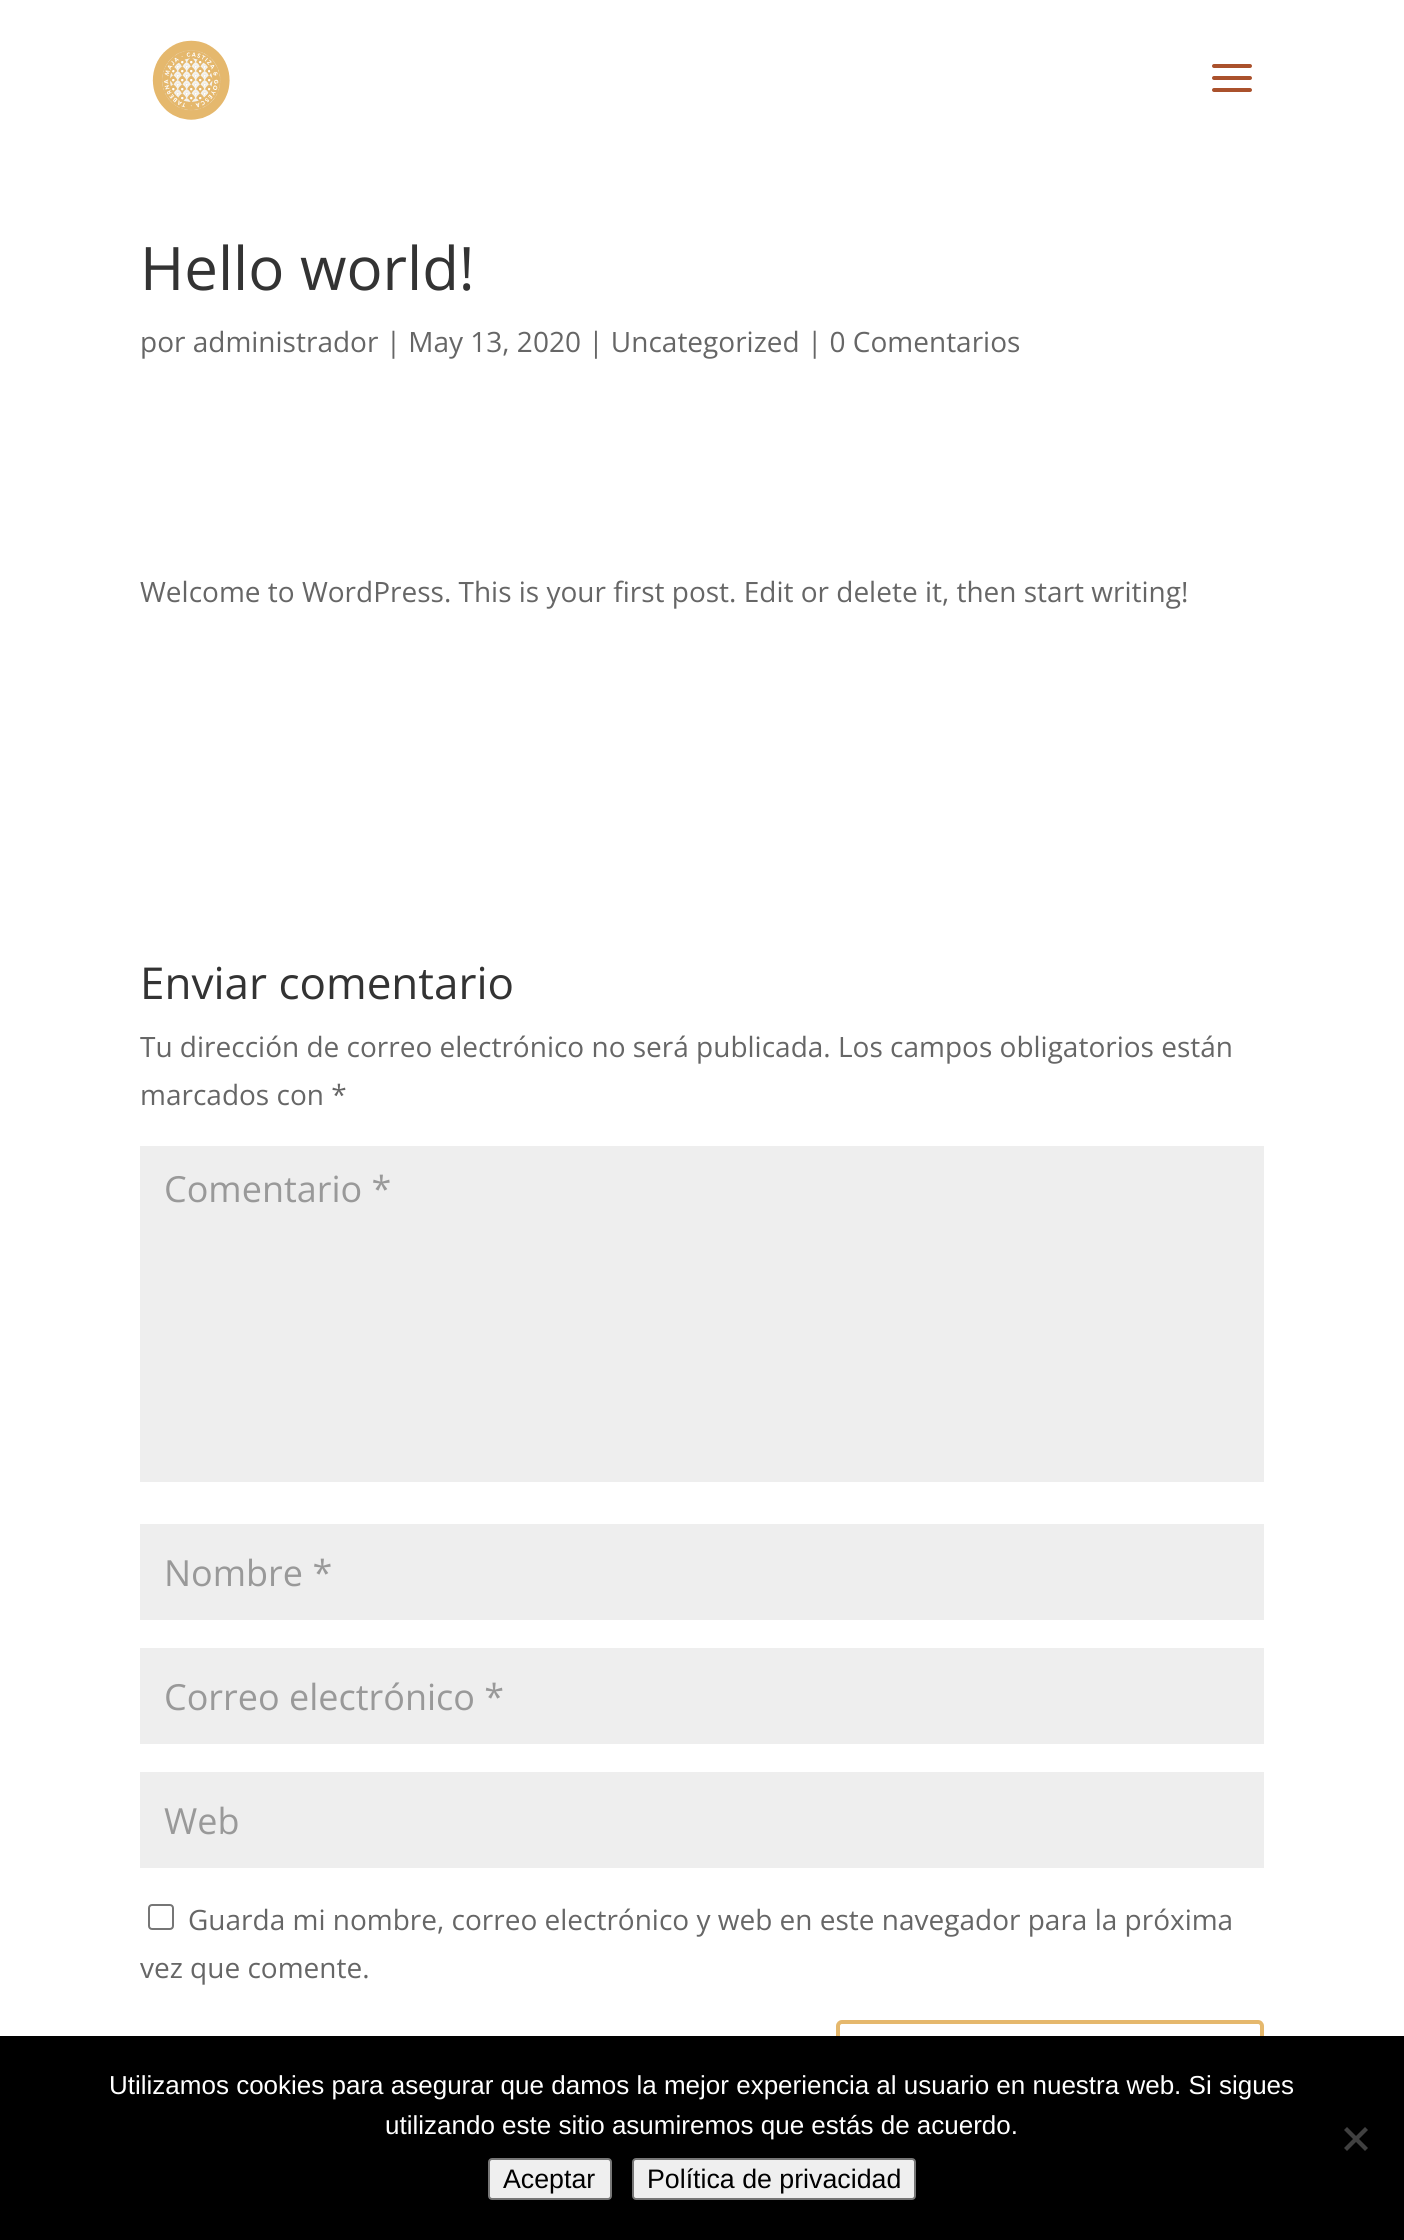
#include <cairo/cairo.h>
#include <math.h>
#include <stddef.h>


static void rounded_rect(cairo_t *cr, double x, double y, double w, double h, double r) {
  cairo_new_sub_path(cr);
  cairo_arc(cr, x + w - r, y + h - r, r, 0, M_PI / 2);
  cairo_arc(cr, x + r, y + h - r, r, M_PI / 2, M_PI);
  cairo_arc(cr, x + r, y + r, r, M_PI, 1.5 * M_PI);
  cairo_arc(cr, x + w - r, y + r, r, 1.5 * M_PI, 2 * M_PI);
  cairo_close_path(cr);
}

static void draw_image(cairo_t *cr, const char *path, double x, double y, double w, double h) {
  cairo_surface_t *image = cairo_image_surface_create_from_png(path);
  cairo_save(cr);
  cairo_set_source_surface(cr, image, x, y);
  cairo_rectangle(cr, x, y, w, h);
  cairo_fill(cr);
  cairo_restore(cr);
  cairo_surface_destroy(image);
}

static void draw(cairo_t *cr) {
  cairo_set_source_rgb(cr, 1, 1, 1);
  cairo_paint(cr);
  draw_image(cr, "images/1.png", 152, 40, 78, 80);
  draw_image(cr, "images/2.png", 1212, 64, 40, 28);
  cairo_set_source_rgb(cr, 238 / 255.0, 238 / 255.0, 238 / 255.0);
  cairo_rectangle(cr, 140, 1146, 1124, 336);
  cairo_fill(cr);
  cairo_rectangle(cr, 140, 1524, 1124, 96);
  cairo_fill(cr);
  cairo_rectangle(cr, 140, 1648, 1124, 96);
  cairo_fill(cr);
  cairo_rectangle(cr, 140, 1772, 1124, 96);
  cairo_fill(cr);
  rounded_rect(cr, 149, 1905, 24, 24, 3);
  cairo_set_source_rgb(cr, 118 / 255.0, 118 / 255.0, 118 / 255.0);
  cairo_stroke(cr);
  rounded_rect(cr, 838, 2022, 424, 96, 4);
  cairo_set_source_rgb(cr, 229 / 255.0, 184 / 255.0, 109 / 255.0);
  cairo_set_line_width(cr, 4);
  cairo_stroke(cr);
  cairo_set_source_rgb(cr, 0, 0, 0);
  cairo_rectangle(cr, 0, 2036, 1404, 204);
  cairo_fill(cr);
  cairo_set_source_rgb(cr, 64 / 255.0, 64 / 255.0, 64 / 255.0);
  cairo_new_path(cr);
  cairo_move_to(cr, 1365, 2127);
  cairo_line_to(cr, 1368, 2130);
  cairo_line_to(cr, 1347, 2151);
  cairo_line_to(cr, 1344, 2148);
  cairo_close_path(cr);
  cairo_fill(cr);
  cairo_new_path(cr);
  cairo_move_to(cr, 1344, 2130);
  cairo_line_to(cr, 1347, 2127);
  cairo_line_to(cr, 1368, 2148);
  cairo_line_to(cr, 1365, 2151);
  cairo_close_path(cr);
  cairo_fill(cr);
  cairo_set_source_rgb(cr, 239 / 255.0, 239 / 255.0, 239 / 255.0);
  rounded_rect(cr, 489, 2159, 122, 40, 3);
  cairo_fill_preserve(cr);
  cairo_set_source_rgb(cr, 118 / 255.0, 118 / 255.0, 118 / 255.0);
  cairo_set_line_width(cr, 2);
  cairo_stroke(cr);
  cairo_set_source_rgb(cr, 239 / 255.0, 239 / 255.0, 239 / 255.0);
  rounded_rect(cr, 633, 2159, 282, 40, 3);
  cairo_fill_preserve(cr);
  cairo_set_source_rgb(cr, 118 / 255.0, 118 / 255.0, 118 / 255.0);
  cairo_stroke(cr);
  cairo_select_font_face(cr, "Open Sans", CAIRO_FONT_SLANT_NORMAL, CAIRO_FONT_WEIGHT_NORMAL);
  cairo_set_font_size(cr, 60);
  cairo_set_source_rgb(cr, 51 / 255.0, 51 / 255.0, 51 / 255.0);
  cairo_move_to(cr, 140, 290);
  cairo_show_text(cr, "Hello world!");
  cairo_set_font_size(cr, 28);
  cairo_set_source_rgb(cr, 102 / 255.0, 102 / 255.0, 102 / 255.0);
  cairo_move_to(cr, 140, 352);
  cairo_show_text(cr, "por administrador | May 13, 2020 | Uncategorized | 0 Comentarios");
  cairo_move_to(cr, 140, 602);
  cairo_show_text(cr, "Welcome to WordPress. This is your first post. Edit or delete it, then start writing!");
  cairo_set_font_size(cr, 44);
  cairo_set_source_rgb(cr, 51 / 255.0, 51 / 255.0, 51 / 255.0);
  cairo_move_to(cr, 140, 999);
  cairo_show_text(cr, "Enviar comentario");
  cairo_set_font_size(cr, 28);
  cairo_set_source_rgb(cr, 102 / 255.0, 102 / 255.0, 102 / 255.0);
  cairo_move_to(cr, 140, 1057);
  cairo_show_text(cr, "Tu dirección de correo electrónico no será publicada. Los campos obligatorios están");
  cairo_move_to(cr, 140, 1105);
  cairo_show_text(cr, "marcados con *");
  cairo_set_font_size(cr, 36);
  cairo_set_source_rgb(cr, 153 / 255.0, 153 / 255.0, 153 / 255.0);
  cairo_move_to(cr, 164, 1202);
  cairo_show_text(cr, "Comentario *");
  cairo_move_to(cr, 164, 1586);
  cairo_show_text(cr, "Nombre *");
  cairo_move_to(cr, 164, 1710);
  cairo_show_text(cr, "Correo electrónico *");
  cairo_move_to(cr, 164, 1834);
  cairo_show_text(cr, "Web");
  cairo_set_font_size(cr, 28);
  cairo_set_source_rgb(cr, 102 / 255.0, 102 / 255.0, 102 / 255.0);
  cairo_move_to(cr, 188, 1930);
  cairo_show_text(cr, "Guarda mi nombre, correo electrónico y web en este navegador para la próxima");
  cairo_move_to(cr, 140, 1978);
  cairo_show_text(cr, "vez que comente.");
  cairo_select_font_face(cr, "Liberation Sans", CAIRO_FONT_SLANT_NORMAL, CAIRO_FONT_WEIGHT_NORMAL);
  cairo_set_font_size(cr, 26);
  cairo_set_source_rgb(cr, 1, 1, 1);
  cairo_move_to(cr, 109, 2094);
  cairo_show_text(cr, "Utilizamos cookies para asegurar que damos la mejor experiencia al usuario en nuestra web. Si sigues");
  cairo_move_to(cr, 385, 2134);
  cairo_show_text(cr, "utilizando este sitio asumiremos que estás de acuerdo.");
  cairo_set_font_size(cr, 26.75);
  cairo_set_source_rgb(cr, 0, 0, 0);
  cairo_move_to(cr, 503, 2188);
  cairo_show_text(cr, "Aceptar");
  cairo_move_to(cr, 647, 2188);
  cairo_show_text(cr, "Política de privacidad");
}

int main(void) {
  cairo_surface_t *surface = cairo_image_surface_create(CAIRO_FORMAT_RGB24, 1404, 2240);
  cairo_t *cr = cairo_create(surface);
  cairo_font_options_t *options = cairo_font_options_create();
  cairo_font_options_set_hint_metrics(options, CAIRO_HINT_METRICS_OFF);
  cairo_font_options_set_hint_style(options, CAIRO_HINT_STYLE_NONE);
  cairo_set_font_options(cr, options);
  cairo_set_miter_limit(cr, 4);
  draw(cr);
  cairo_surface_write_to_png(surface, "out.png");
  cairo_font_options_destroy(options);
  cairo_destroy(cr);
  cairo_surface_destroy(surface);
  return 0;
}
